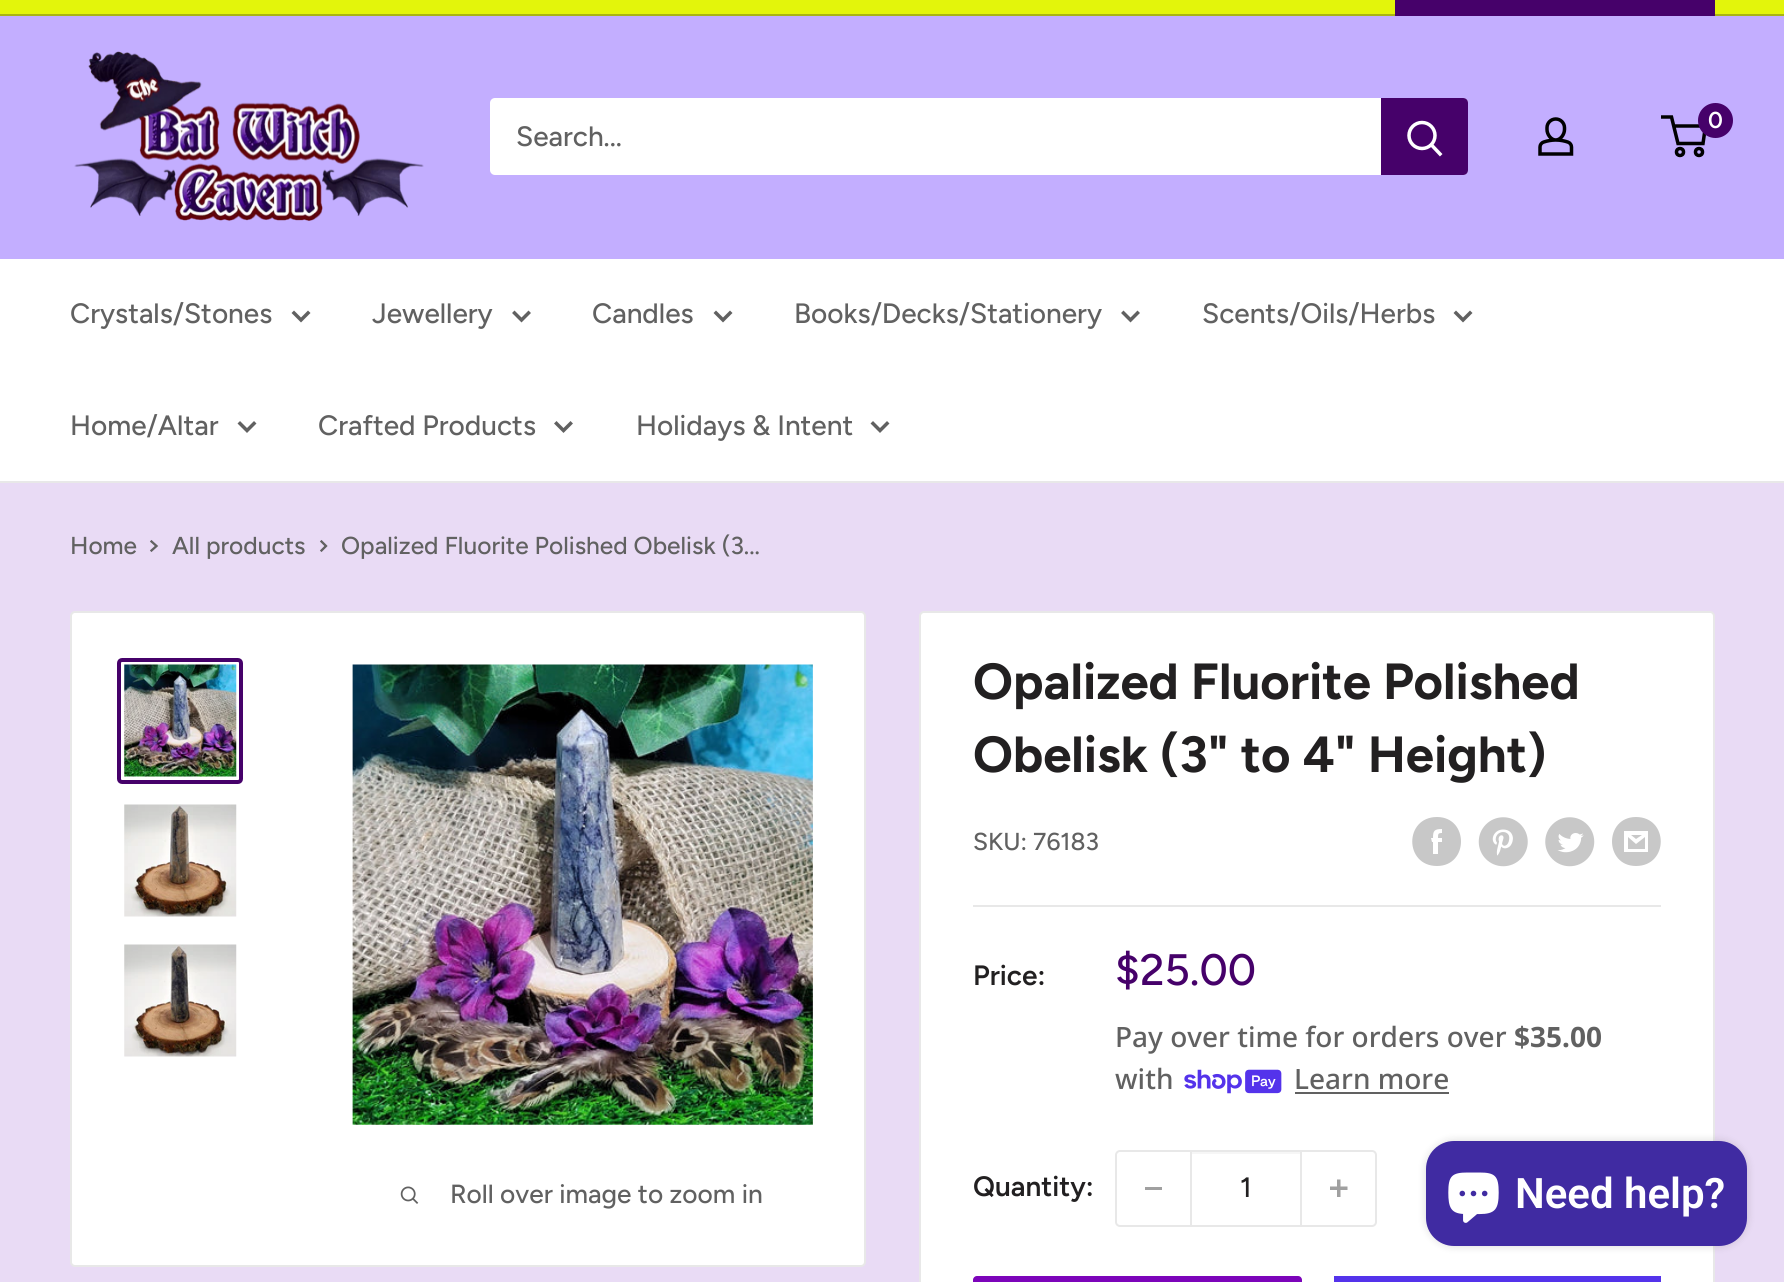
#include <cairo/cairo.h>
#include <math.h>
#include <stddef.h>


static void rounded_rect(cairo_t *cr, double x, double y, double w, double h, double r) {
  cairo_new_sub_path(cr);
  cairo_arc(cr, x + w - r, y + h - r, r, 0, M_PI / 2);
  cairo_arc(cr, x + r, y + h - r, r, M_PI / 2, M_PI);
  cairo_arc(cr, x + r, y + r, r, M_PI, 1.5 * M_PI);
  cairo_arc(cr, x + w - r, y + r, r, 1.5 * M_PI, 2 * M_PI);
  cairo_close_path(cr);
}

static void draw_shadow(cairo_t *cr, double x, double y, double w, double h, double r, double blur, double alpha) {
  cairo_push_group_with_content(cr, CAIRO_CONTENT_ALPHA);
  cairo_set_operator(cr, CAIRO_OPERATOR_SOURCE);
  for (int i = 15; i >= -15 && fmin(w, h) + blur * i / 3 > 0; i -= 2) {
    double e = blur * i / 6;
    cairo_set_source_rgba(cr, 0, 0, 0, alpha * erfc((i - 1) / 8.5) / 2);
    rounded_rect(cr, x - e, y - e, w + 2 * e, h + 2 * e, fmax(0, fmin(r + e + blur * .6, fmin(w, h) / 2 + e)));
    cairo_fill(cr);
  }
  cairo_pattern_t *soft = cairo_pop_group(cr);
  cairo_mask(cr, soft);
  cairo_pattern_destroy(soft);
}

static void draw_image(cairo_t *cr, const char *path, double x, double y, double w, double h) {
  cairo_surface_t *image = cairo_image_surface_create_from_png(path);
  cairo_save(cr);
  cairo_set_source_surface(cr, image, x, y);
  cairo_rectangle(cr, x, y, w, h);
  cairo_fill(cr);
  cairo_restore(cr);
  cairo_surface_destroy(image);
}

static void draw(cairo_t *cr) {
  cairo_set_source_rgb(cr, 233 / 255.0, 219 / 255.0, 245 / 255.0);
  cairo_paint(cr);
  cairo_set_source_rgb(cr, 227 / 255.0, 245 / 255.0, 11 / 255.0);
  cairo_rectangle(cr, 0, 0, 1784, 14);
  cairo_fill(cr);
  cairo_set_source_rgb(cr, 169 / 255.0, 181 / 255.0, 18 / 255.0);
  cairo_rectangle(cr, 0, 14, 1784, 2);
  cairo_fill(cr);
  cairo_set_source_rgb(cr, 70 / 255.0, 1 / 255.0, 106 / 255.0);
  cairo_rectangle(cr, 1395, 0, 320, 16);
  cairo_fill(cr);
  cairo_set_source_rgb(cr, 195 / 255.0, 174 / 255.0, 1);
  cairo_rectangle(cr, 0, 16, 1784, 243);
  cairo_fill(cr);
  draw_image(cr, "images/1.png", 74, 51, 350, 170);
  draw_image(cr, "images/2.png", 1538, 117, 36, 39);
  cairo_arc(cr, 1680, 152, 3.5, 0, 2 * M_PI);
  cairo_set_source_rgb(cr, 0, 0, 0);
  cairo_set_line_width(cr, 3.5);
  cairo_stroke(cr);
  cairo_arc(cr, 1699, 152, 3.5, 0, 2 * M_PI);
  cairo_stroke(cr);
  cairo_new_path(cr);
  cairo_move_to(cr, 1673.5, 126);
  cairo_line_to(cr, 1705.5, 126);
  cairo_line_to(cr, 1703, 143.5);
  cairo_line_to(cr, 1678, 143.5);
  cairo_line_to(cr, 1671.5, 117);
  cairo_line_to(cr, 1661, 117);
  cairo_stroke(cr);
  cairo_set_source_rgb(cr, 70 / 255.0, 1 / 255.0, 106 / 255.0);
  cairo_arc(cr, 1715.5, 120.5, 17.5, 0, 2 * M_PI);
  cairo_fill(cr);
  cairo_set_source_rgb(cr, 1, 1, 1);
  rounded_rect(cr, 490, 98, 978, 77, 5);
  cairo_fill(cr);
  cairo_set_source_rgb(cr, 70 / 255.0, 1 / 255.0, 106 / 255.0);
  cairo_new_path(cr);
  cairo_move_to(cr, 1381, 98);
  cairo_line_to(cr, 1463, 98);
  cairo_curve_to(cr, 1466, 98, 1468, 100, 1468, 103);
  cairo_line_to(cr, 1468, 170);
  cairo_curve_to(cr, 1468, 173, 1466, 175, 1463, 175);
  cairo_line_to(cr, 1381, 175);
  cairo_close_path(cr);
  cairo_fill(cr);
  cairo_new_path(cr);
  cairo_move_to(cr, 1440, 154);
  cairo_line_to(cr, 1431.5, 145);
  cairo_set_source_rgb(cr, 1, 1, 1);
  cairo_set_line_cap(cr, CAIRO_LINE_CAP_SQUARE);
  cairo_stroke(cr);
  cairo_arc(cr, 1422, 135.5, 13, 0, 2 * M_PI);
  cairo_set_line_cap(cr, CAIRO_LINE_CAP_BUTT);
  cairo_stroke(cr);
  cairo_rectangle(cr, 0, 259, 1784, 222);
  cairo_fill(cr);
  cairo_set_source_rgb(cr, 232 / 255.0, 232 / 255.0, 232 / 255.0);
  cairo_rectangle(cr, 0, 481, 1784, 2);
  cairo_fill(cr);
  cairo_new_path(cr);
  cairo_move_to(cr, 308, 313);
  cairo_line_to(cr, 301, 320);
  cairo_line_to(cr, 294, 313);
  cairo_set_source_rgb(cr, 97 / 255.0, 97 / 255.0, 97 / 255.0);
  cairo_set_line_cap(cr, CAIRO_LINE_CAP_SQUARE);
  cairo_stroke(cr);
  cairo_new_path(cr);
  cairo_move_to(cr, 528.5, 313);
  cairo_line_to(cr, 521.5, 320);
  cairo_line_to(cr, 514.5, 313);
  cairo_stroke(cr);
  cairo_new_path(cr);
  cairo_move_to(cr, 730, 313);
  cairo_line_to(cr, 723, 320);
  cairo_line_to(cr, 716, 313);
  cairo_stroke(cr);
  cairo_new_path(cr);
  cairo_move_to(cr, 1137.5, 313);
  cairo_line_to(cr, 1130.5, 320);
  cairo_line_to(cr, 1123.5, 313);
  cairo_stroke(cr);
  cairo_new_path(cr);
  cairo_move_to(cr, 1470, 313);
  cairo_line_to(cr, 1463, 320);
  cairo_line_to(cr, 1456, 313);
  cairo_stroke(cr);
  cairo_new_path(cr);
  cairo_move_to(cr, 254, 423.5);
  cairo_line_to(cr, 247, 430.5);
  cairo_line_to(cr, 240, 423.5);
  cairo_stroke(cr);
  cairo_new_path(cr);
  cairo_move_to(cr, 570.5, 423.5);
  cairo_line_to(cr, 563.5, 430.5);
  cairo_line_to(cr, 556.5, 423.5);
  cairo_stroke(cr);
  cairo_new_path(cr);
  cairo_move_to(cr, 887, 423.5);
  cairo_line_to(cr, 880, 430.5);
  cairo_line_to(cr, 873, 423.5);
  cairo_stroke(cr);
  cairo_new_path(cr);
  cairo_move_to(cr, 151.5, 541.5);
  cairo_line_to(cr, 156.5, 546);
  cairo_line_to(cr, 151.5, 550.5);
  cairo_set_line_width(cr, 2.3);
  cairo_stroke(cr);
  cairo_new_path(cr);
  cairo_move_to(cr, 321.5, 541.5);
  cairo_line_to(cr, 326, 546);
  cairo_line_to(cr, 321.5, 550.5);
  cairo_stroke(cr);
  cairo_set_source_rgb(cr, 1, 1, 1);
  rounded_rect(cr, 71, 612, 794, 654, 4);
  cairo_fill_preserve(cr);
  cairo_set_source_rgb(cr, 232 / 255.0, 232 / 255.0, 232 / 255.0);
  cairo_set_line_width(cr, 2);
  cairo_set_line_cap(cr, CAIRO_LINE_CAP_BUTT);
  cairo_stroke(cr);
  rounded_rect(cr, 119, 660, 122, 122, 3);
  cairo_set_source_rgb(cr, 70 / 255.0, 1 / 255.0, 106 / 255.0);
  cairo_set_line_width(cr, 4);
  cairo_stroke(cr);
  draw_image(cr, "images/3.png", 124, 664, 113, 113);
  draw_image(cr, "images/4.png", 124, 804, 113, 113);
  draw_image(cr, "images/5.png", 124, 944, 113, 113);
  draw_image(cr, "images/6.png", 352, 664, 461, 461);
  draw_image(cr, "images/7.png", 400, 1186, 19, 18);
  cairo_set_source_rgb(cr, 1, 1, 1);
  rounded_rect(cr, 920, 612, 794, 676, 4);
  cairo_fill_preserve(cr);
  cairo_set_source_rgb(cr, 232 / 255.0, 232 / 255.0, 232 / 255.0);
  cairo_set_line_width(cr, 2);
  cairo_stroke(cr);
  cairo_set_source_rgb(cr, 200 / 255.0, 200 / 255.0, 200 / 255.0);
  cairo_set_fill_rule(cr, CAIRO_FILL_RULE_EVEN_ODD);
  cairo_new_path(cr);
  cairo_move_to(cr, 1437, 866);
  cairo_curve_to(cr, 1404, 866, 1404, 817, 1437, 817);
  cairo_curve_to(cr, 1469, 817, 1469, 866, 1437, 866);
  cairo_close_path(cr);
  cairo_move_to(cr, 1442, 838);
  cairo_line_to(cr, 1438, 838);
  cairo_curve_to(cr, 1438, 834, 1438, 833, 1442, 833);
  cairo_line_to(cr, 1442, 829);
  cairo_curve_to(cr, 1434, 829, 1433, 831, 1433, 838);
  cairo_line_to(cr, 1431, 838);
  cairo_line_to(cr, 1432, 842);
  cairo_line_to(cr, 1433, 842);
  cairo_line_to(cr, 1433, 854);
  cairo_line_to(cr, 1438, 854);
  cairo_line_to(cr, 1438, 842);
  cairo_line_to(cr, 1442, 842);
  cairo_close_path(cr);
  cairo_fill(cr);
  draw_image(cr, "images/8.png", 1478, 817, 50, 50);
  draw_image(cr, "images/9.png", 1545, 817, 50, 50);
  cairo_set_fill_rule(cr, CAIRO_FILL_RULE_WINDING);
  cairo_new_path(cr);
  cairo_move_to(cr, 1636, 866);
  cairo_curve_to(cr, 1604, 866, 1604, 817, 1636, 817);
  cairo_curve_to(cr, 1669, 817, 1669, 866, 1636, 866);
  cairo_close_path(cr);
  cairo_move_to(cr, 1631, 835);
  cairo_line_to(cr, 1642, 835);
  cairo_line_to(cr, 1636, 839);
  cairo_close_path(cr);
  cairo_move_to(cr, 1645, 837);
  cairo_line_to(cr, 1645, 849);
  cairo_line_to(cr, 1628, 849);
  cairo_line_to(cr, 1628, 837);
  cairo_line_to(cr, 1636, 844);
  cairo_close_path(cr);
  cairo_move_to(cr, 1648, 831);
  cairo_line_to(cr, 1624, 831);
  cairo_line_to(cr, 1624, 852);
  cairo_line_to(cr, 1648, 852);
  cairo_close_path(cr);
  cairo_fill(cr);
  cairo_set_source_rgb(cr, 232 / 255.0, 232 / 255.0, 232 / 255.0);
  cairo_rectangle(cr, 973, 905, 688, 2);
  cairo_fill(cr);
  draw_image(cr, "images/10.png", 1184, 1069, 98, 25);
  cairo_set_source_rgb(cr, 97 / 255.0, 97 / 255.0, 97 / 255.0);
  cairo_rectangle(cr, 1295, 1092, 154, 2);
  cairo_fill(cr);
  rounded_rect(cr, 1116, 1151, 260, 75, 4);
  cairo_set_source_rgb(cr, 232 / 255.0, 232 / 255.0, 232 / 255.0);
  cairo_stroke(cr);
  cairo_set_source_rgb(cr, 160 / 255.0, 160 / 255.0, 160 / 255.0);
  cairo_rectangle(cr, 1145, 1187, 17, 3);
  cairo_fill(cr);
  cairo_set_source_rgb(cr, 246 / 255.0, 246 / 255.0, 246 / 255.0);
  cairo_rectangle(cr, 1192, 1152, 108, 2);
  cairo_fill(cr);
  cairo_set_source_rgb(cr, 232 / 255.0, 232 / 255.0, 232 / 255.0);
  cairo_rectangle(cr, 1300, 1152, 2, 73);
  cairo_fill(cr);
  cairo_rectangle(cr, 1190, 1152, 2, 73);
  cairo_fill(cr);
  draw_image(cr, "images/11.png", 1330, 1179, 18, 18);
  cairo_set_source_rgb(cr, 124 / 255.0, 4 / 255.0, 186 / 255.0);
  rounded_rect(cr, 973, 1276, 329, 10, 4);
  cairo_fill(cr);
  cairo_set_source_rgb(cr, 84 / 255.0, 51 / 255.0, 235 / 255.0);
  cairo_rectangle(cr, 1334, 1276, 327, 6);
  cairo_fill(cr);
  cairo_set_source_rgb(cr, 0, 0, 0);
  draw_shadow(cr, 1426, 1141, 321, 105, 28, 4.5, 0.15);
  cairo_set_source_rgb(cr, 64 / 255.0, 43 / 255.0, 162 / 255.0);
  rounded_rect(cr, 1426, 1141, 321, 105, 28);
  cairo_fill(cr);
  draw_image(cr, "images/12.png", 1448, 1172, 51, 51);
  cairo_select_font_face(cr, "Figtree SemiBold", CAIRO_FONT_SLANT_NORMAL, CAIRO_FONT_WEIGHT_NORMAL);
  cairo_set_font_size(cr, 23);
  cairo_set_source_rgb(cr, 1, 1, 1);
  cairo_move_to(cr, 1708, 128);
  cairo_show_text(cr, "0");
  cairo_select_font_face(cr, "Figtree Medium", CAIRO_FONT_SLANT_NORMAL, CAIRO_FONT_WEIGHT_NORMAL);
  cairo_set_font_size(cr, 28);
  cairo_set_source_rgb(cr, 97 / 255.0, 97 / 255.0, 97 / 255.0);
  cairo_move_to(cr, 516, 146);
  cairo_show_text(cr, "Search...");
  cairo_move_to(cr, 70, 323);
  cairo_show_text(cr, "Crystals/Stones");
  cairo_move_to(cr, 372, 323);
  cairo_show_text(cr, "Jewellery");
  cairo_move_to(cr, 592, 323);
  cairo_show_text(cr, "Candles");
  cairo_move_to(cr, 794, 323);
  cairo_show_text(cr, "Books/Decks/Stationery");
  cairo_move_to(cr, 1202, 323);
  cairo_show_text(cr, "Scents/Oils/Herbs");
  cairo_move_to(cr, 70, 435);
  cairo_show_text(cr, "Home/Altar");
  cairo_move_to(cr, 318, 435);
  cairo_show_text(cr, "Crafted Products");
  cairo_move_to(cr, 636, 435);
  cairo_show_text(cr, "Holidays & Intent");
  cairo_set_font_size(cr, 24.5);
  cairo_move_to(cr, 70, 554);
  cairo_show_text(cr, "Home");
  cairo_move_to(cr, 172, 554);
  cairo_show_text(cr, "All products");
  cairo_move_to(cr, 341, 554);
  cairo_show_text(cr, "Opalized Fluorite Polished Obelisk (3...");
  cairo_set_font_size(cr, 26.25);
  cairo_move_to(cr, 450, 1203);
  cairo_show_text(cr, "Roll over image to zoom in");
  cairo_select_font_face(cr, "Figtree", CAIRO_FONT_SLANT_NORMAL, CAIRO_FONT_WEIGHT_BOLD);
  cairo_set_font_size(cr, 50.75);
  cairo_set_source_rgb(cr, 34 / 255.0, 32 / 255.0, 33 / 255.0);
  cairo_move_to(cr, 973, 699);
  cairo_show_text(cr, "Opalized Fluorite Polished");
  cairo_move_to(cr, 973, 772);
  cairo_show_text(cr, "Obelisk (3\" to 4\" Height)");
  cairo_select_font_face(cr, "Figtree Medium", CAIRO_FONT_SLANT_NORMAL, CAIRO_FONT_WEIGHT_NORMAL);
  cairo_set_font_size(cr, 24.5);
  cairo_set_source_rgb(cr, 97 / 255.0, 97 / 255.0, 97 / 255.0);
  cairo_move_to(cr, 973, 850);
  cairo_show_text(cr, "SKU: 76183");
  cairo_select_font_face(cr, "Figtree SemiBold", CAIRO_FONT_SLANT_NORMAL, CAIRO_FONT_WEIGHT_NORMAL);
  cairo_set_font_size(cr, 28);
  cairo_set_source_rgb(cr, 34 / 255.0, 32 / 255.0, 33 / 255.0);
  cairo_move_to(cr, 973, 985);
  cairo_show_text(cr, "Price:");
  cairo_select_font_face(cr, "Figtree Medium", CAIRO_FONT_SLANT_NORMAL, CAIRO_FONT_WEIGHT_NORMAL);
  cairo_set_font_size(cr, 44);
  cairo_set_source_rgb(cr, 70 / 255.0, 1 / 255.0, 106 / 255.0);
  cairo_move_to(cr, 1115, 985);
  cairo_show_text(cr, "$25.00");
  cairo_select_font_face(cr, "Noto Sans Medium", CAIRO_FONT_SLANT_NORMAL, CAIRO_FONT_WEIGHT_NORMAL);
  cairo_set_font_size(cr, 28);
  cairo_set_source_rgb(cr, 97 / 255.0, 97 / 255.0, 97 / 255.0);
  cairo_move_to(cr, 1115, 1047);
  cairo_show_text(cr, "Pay over time for orders over");
  cairo_select_font_face(cr, "Noto Sans", CAIRO_FONT_SLANT_NORMAL, CAIRO_FONT_WEIGHT_BOLD);
  cairo_move_to(cr, 1514, 1047);
  cairo_show_text(cr, "$35.00");
  cairo_select_font_face(cr, "Noto Sans Medium", CAIRO_FONT_SLANT_NORMAL, CAIRO_FONT_WEIGHT_NORMAL);
  cairo_move_to(cr, 1115, 1089);
  cairo_show_text(cr, "with");
  cairo_move_to(cr, 1294, 1089);
  cairo_show_text(cr, "Learn more");
  cairo_select_font_face(cr, "Figtree SemiBold", CAIRO_FONT_SLANT_NORMAL, CAIRO_FONT_WEIGHT_NORMAL);
  cairo_set_source_rgb(cr, 34 / 255.0, 32 / 255.0, 33 / 255.0);
  cairo_move_to(cr, 973, 1196);
  cairo_show_text(cr, "Quantity:");
  cairo_select_font_face(cr, "Figtree Medium", CAIRO_FONT_SLANT_NORMAL, CAIRO_FONT_WEIGHT_NORMAL);
  cairo_move_to(cr, 1240, 1197);
  cairo_show_text(cr, "1");
  cairo_select_font_face(cr, "Roboto SemiBold", CAIRO_FONT_SLANT_NORMAL, CAIRO_FONT_WEIGHT_NORMAL);
  cairo_set_font_size(cr, 42);
  cairo_set_source_rgb(cr, 1, 1, 1);
  cairo_move_to(cr, 1515, 1208);
  cairo_show_text(cr, "Need help?");
}

int main(void) {
  cairo_surface_t *surface = cairo_image_surface_create(CAIRO_FORMAT_RGB24, 1784, 1282);
  cairo_t *cr = cairo_create(surface);
  cairo_font_options_t *options = cairo_font_options_create();
  cairo_font_options_set_hint_metrics(options, CAIRO_HINT_METRICS_OFF);
  cairo_font_options_set_hint_style(options, CAIRO_HINT_STYLE_NONE);
  cairo_set_font_options(cr, options);
  cairo_set_miter_limit(cr, 4);
  draw(cr);
  cairo_surface_write_to_png(surface, "out.png");
  cairo_font_options_destroy(options);
  cairo_destroy(cr);
  cairo_surface_destroy(surface);
  return 0;
}
